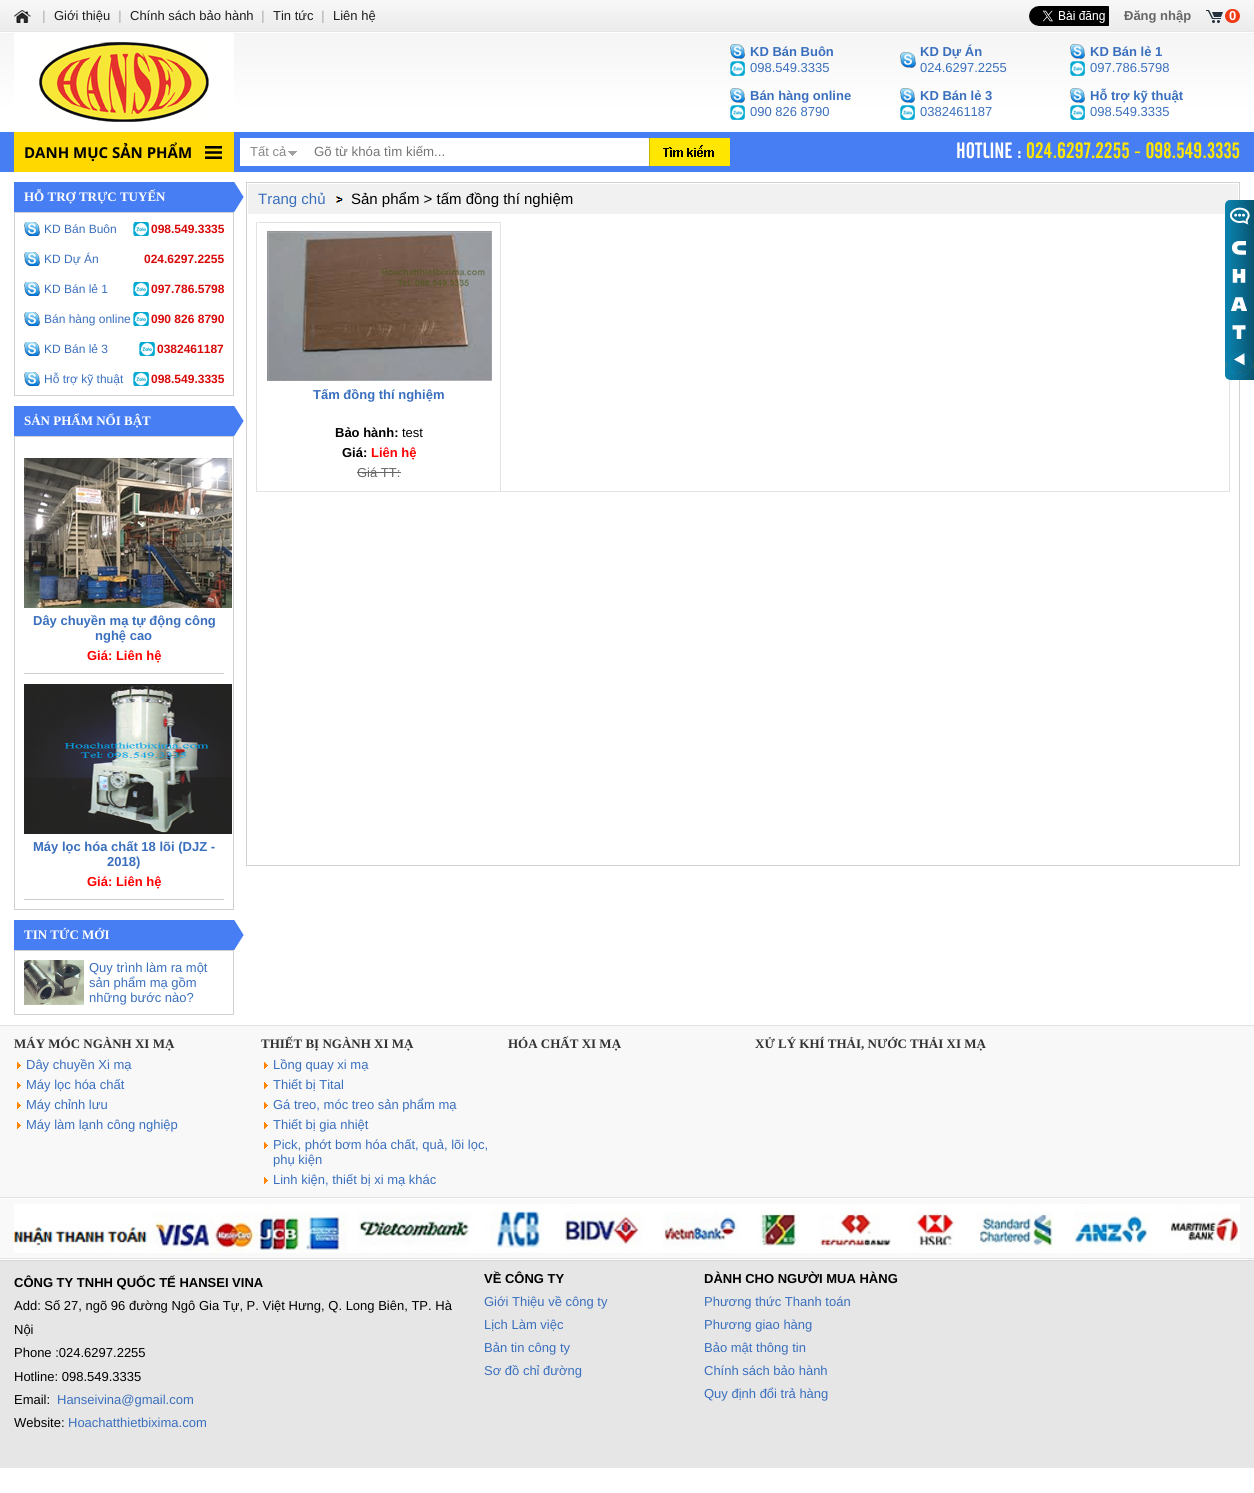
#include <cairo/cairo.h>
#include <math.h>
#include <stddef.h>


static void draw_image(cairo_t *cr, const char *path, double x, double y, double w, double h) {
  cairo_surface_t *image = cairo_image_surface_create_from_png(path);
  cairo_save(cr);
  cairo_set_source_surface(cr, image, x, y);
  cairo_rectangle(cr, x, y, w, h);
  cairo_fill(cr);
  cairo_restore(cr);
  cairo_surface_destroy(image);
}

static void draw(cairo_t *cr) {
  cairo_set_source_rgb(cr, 1, 1, 1);
  cairo_paint(cr);
  draw_image(cr, "images/1.png", 0, 33, 1254, 139);
  draw_image(cr, "images/2.png", 0, 0, 1254, 32);
  draw_image(cr, "images/3.png", 14, 10, 17, 13);
  draw_image(cr, "images/4.png", 1029, 6, 80, 20);
  draw_image(cr, "images/5.png", 1206, 9, 34, 14);
  draw_image(cr, "images/6.png", 14, 33, 220, 89);
  draw_image(cr, "images/7.png", 730, 44, 15, 32);
  draw_image(cr, "images/8.png", 900, 52, 16, 16);
  draw_image(cr, "images/7.png", 1070, 44, 15, 32);
  draw_image(cr, "images/9.png", 730, 88, 15, 32);
  draw_image(cr, "images/9.png", 900, 88, 15, 32);
  draw_image(cr, "images/9.png", 1070, 88, 15, 32);
  cairo_set_source_rgb(cr, 1, 216 / 255.0, 0);
  cairo_rectangle(cr, 14, 132, 220, 40);
  cairo_fill(cr);
  draw_image(cr, "images/10.png", 205, 146, 17, 13);
  cairo_set_source_rgb(cr, 1, 1, 1);
  cairo_rectangle(cr, 240, 138, 409, 28);
  cairo_fill(cr);
  draw_image(cr, "images/11.png", 288, 151, 9, 5);
  draw_image(cr, "images/12.png", 649, 138, 81, 28);
  cairo_set_source_rgb(cr, 71 / 255.0, 126 / 255.0, 243 / 255.0);
  cairo_rectangle(cr, 14, 182, 220, 30);
  cairo_fill(cr);
  draw_image(cr, "images/13.png", 234, 182, 10, 30);
  cairo_rectangle(cr, 14.5, 212.5, 219, 183);
  cairo_set_source_rgb(cr, 209 / 255.0, 209 / 255.0, 209 / 255.0);
  cairo_set_line_width(cr, 1);
  cairo_stroke(cr);
  draw_image(cr, "images/14.png", 24, 222, 16, 14);
  draw_image(cr, "images/15.png", 133, 222, 16, 14);
  draw_image(cr, "images/14.png", 24, 252, 16, 14);
  draw_image(cr, "images/14.png", 24, 282, 16, 14);
  draw_image(cr, "images/15.png", 133, 282, 16, 14);
  draw_image(cr, "images/14.png", 24, 312, 16, 14);
  draw_image(cr, "images/15.png", 133, 312, 16, 14);
  draw_image(cr, "images/14.png", 24, 342, 16, 14);
  draw_image(cr, "images/15.png", 139, 342, 16, 14);
  draw_image(cr, "images/14.png", 24, 372, 16, 14);
  draw_image(cr, "images/15.png", 133, 372, 16, 14);
  cairo_set_source_rgb(cr, 71 / 255.0, 126 / 255.0, 243 / 255.0);
  cairo_rectangle(cr, 14, 406, 220, 30);
  cairo_fill(cr);
  draw_image(cr, "images/13.png", 234, 406, 10, 30);
  cairo_rectangle(cr, 14.5, 436.5, 219, 473);
  cairo_set_source_rgb(cr, 209 / 255.0, 209 / 255.0, 209 / 255.0);
  cairo_stroke(cr);
  cairo_set_source_rgb(cr, 204 / 255.0, 204 / 255.0, 204 / 255.0);
  cairo_rectangle(cr, 24, 673, 200, 1);
  cairo_fill(cr);
  draw_image(cr, "images/16.png", 24, 458, 208, 150);
  cairo_rectangle(cr, 24, 899, 200, 1);
  cairo_fill(cr);
  draw_image(cr, "images/17.png", 24, 684, 208, 150);
  cairo_set_source_rgb(cr, 71 / 255.0, 126 / 255.0, 243 / 255.0);
  cairo_rectangle(cr, 14, 920, 220, 30);
  cairo_fill(cr);
  draw_image(cr, "images/13.png", 234, 920, 10, 30);
  cairo_rectangle(cr, 14.5, 950.5, 219, 64);
  cairo_set_source_rgb(cr, 209 / 255.0, 209 / 255.0, 209 / 255.0);
  cairo_stroke(cr);
  draw_image(cr, "images/18.png", 24, 960, 60, 45);
  cairo_rectangle(cr, 246.5, 182.5, 993, 683);
  cairo_stroke(cr);
  cairo_set_source_rgb(cr, 241 / 255.0, 241 / 255.0, 241 / 255.0);
  cairo_rectangle(cr, 248, 184, 990, 30);
  cairo_fill(cr);
  draw_image(cr, "images/19.png", 336, 196, 7, 7);
  cairo_set_source_rgb(cr, 227 / 255.0, 227 / 255.0, 227 / 255.0);
  cairo_rectangle(cr, 1229, 379, 1, 113);
  cairo_fill(cr);
  cairo_rectangle(cr, 256, 491, 974, 1);
  cairo_fill(cr);
  cairo_rectangle(cr, 256, 222, 1, 270);
  cairo_fill(cr);
  cairo_rectangle(cr, 258, 222, 243, 1);
  cairo_fill(cr);
  cairo_rectangle(cr, 500, 222, 1, 269);
  cairo_fill(cr);
  draw_image(cr, "images/20.png", 267, 231, 225, 150);
  cairo_set_source_rgb(cr, 102 / 255.0, 102 / 255.0, 102 / 255.0);
  cairo_rectangle(cr, 357, 472, 44, 1);
  cairo_fill(cr);
  draw_image(cr, "images/21.png", 1225, 200, 29, 180);
  cairo_set_source_rgb(cr, 248 / 255.0, 248 / 255.0, 248 / 255.0);
  cairo_rectangle(cr, 0, 1026, 1254, 171);
  cairo_fill(cr);
  cairo_set_source_rgb(cr, 227 / 255.0, 227 / 255.0, 227 / 255.0);
  cairo_rectangle(cr, 0, 1025, 1254, 1);
  cairo_fill(cr);
  cairo_rectangle(cr, 0, 1197, 1254, 1);
  cairo_fill(cr);
  draw_image(cr, "images/22.png", 17, 1062, 4, 7);
  draw_image(cr, "images/22.png", 17, 1082, 4, 7);
  draw_image(cr, "images/22.png", 17, 1102, 4, 7);
  draw_image(cr, "images/22.png", 17, 1122, 4, 7);
  draw_image(cr, "images/22.png", 264, 1062, 4, 7);
  draw_image(cr, "images/22.png", 264, 1082, 4, 7);
  draw_image(cr, "images/22.png", 264, 1102, 4, 7);
  draw_image(cr, "images/22.png", 264, 1122, 4, 7);
  draw_image(cr, "images/22.png", 264, 1142, 4, 7);
  draw_image(cr, "images/22.png", 264, 1177, 4, 7);
  cairo_set_source_rgb(cr, 249 / 255.0, 249 / 255.0, 249 / 255.0);
  cairo_rectangle(cr, 0, 1199, 1254, 59);
  cairo_fill(cr);
  cairo_set_source_rgb(cr, 227 / 255.0, 227 / 255.0, 227 / 255.0);
  cairo_rectangle(cr, 0, 1258, 1254, 1);
  cairo_fill(cr);
  draw_image(cr, "images/23.png", 14, 1204, 1226, 49);
  cairo_set_source_rgb(cr, 230 / 255.0, 230 / 255.0, 230 / 255.0);
  cairo_rectangle(cr, 0, 1261, 1254, 207);
  cairo_fill(cr);
  cairo_set_source_rgb(cr, 214 / 255.0, 214 / 255.0, 214 / 255.0);
  cairo_rectangle(cr, 0, 1260, 1254, 1);
  cairo_fill(cr);
  cairo_select_font_face(cr, "Liberation Sans", CAIRO_FONT_SLANT_NORMAL, CAIRO_FONT_WEIGHT_BOLD);
  cairo_set_font_size(cr, 13);
  cairo_set_source_rgb(cr, 195 / 255.0, 195 / 255.0, 195 / 255.0);
  cairo_move_to(cr, 42, 20);
  cairo_show_text(cr, "|");
  cairo_select_font_face(cr, "Liberation Sans", CAIRO_FONT_SLANT_NORMAL, CAIRO_FONT_WEIGHT_NORMAL);
  cairo_set_source_rgb(cr, 30 / 255.0, 30 / 255.0, 30 / 255.0);
  cairo_move_to(cr, 54, 20);
  cairo_show_text(cr, "Giới thiệu");
  cairo_select_font_face(cr, "Liberation Sans", CAIRO_FONT_SLANT_NORMAL, CAIRO_FONT_WEIGHT_BOLD);
  cairo_set_source_rgb(cr, 195 / 255.0, 195 / 255.0, 195 / 255.0);
  cairo_move_to(cr, 118, 20);
  cairo_show_text(cr, "|");
  cairo_select_font_face(cr, "Liberation Sans", CAIRO_FONT_SLANT_NORMAL, CAIRO_FONT_WEIGHT_NORMAL);
  cairo_set_source_rgb(cr, 30 / 255.0, 30 / 255.0, 30 / 255.0);
  cairo_move_to(cr, 130, 20);
  cairo_show_text(cr, "Chính sách bảo hành");
  cairo_select_font_face(cr, "Liberation Sans", CAIRO_FONT_SLANT_NORMAL, CAIRO_FONT_WEIGHT_BOLD);
  cairo_set_source_rgb(cr, 195 / 255.0, 195 / 255.0, 195 / 255.0);
  cairo_move_to(cr, 261, 20);
  cairo_show_text(cr, "|");
  cairo_select_font_face(cr, "Liberation Sans", CAIRO_FONT_SLANT_NORMAL, CAIRO_FONT_WEIGHT_NORMAL);
  cairo_set_source_rgb(cr, 30 / 255.0, 30 / 255.0, 30 / 255.0);
  cairo_move_to(cr, 273, 20);
  cairo_show_text(cr, "Tin tức");
  cairo_select_font_face(cr, "Liberation Sans", CAIRO_FONT_SLANT_NORMAL, CAIRO_FONT_WEIGHT_BOLD);
  cairo_set_source_rgb(cr, 195 / 255.0, 195 / 255.0, 195 / 255.0);
  cairo_move_to(cr, 321, 20);
  cairo_show_text(cr, "|");
  cairo_select_font_face(cr, "Liberation Sans", CAIRO_FONT_SLANT_NORMAL, CAIRO_FONT_WEIGHT_NORMAL);
  cairo_set_source_rgb(cr, 30 / 255.0, 30 / 255.0, 30 / 255.0);
  cairo_move_to(cr, 333, 20);
  cairo_show_text(cr, "Liên hệ");
  cairo_select_font_face(cr, "Liberation Sans", CAIRO_FONT_SLANT_NORMAL, CAIRO_FONT_WEIGHT_BOLD);
  cairo_set_source_rgb(cr, 102 / 255.0, 102 / 255.0, 102 / 255.0);
  cairo_move_to(cr, 1124, 20);
  cairo_show_text(cr, "Đăng nhập");
  cairo_set_source_rgb(cr, 1, 1, 1);
  cairo_move_to(cr, 1229, 20);
  cairo_show_text(cr, "0");
  cairo_set_source_rgb(cr, 58 / 255.0, 111 / 255.0, 189 / 255.0);
  cairo_move_to(cr, 750, 56);
  cairo_show_text(cr, "KD Bán Buôn");
  cairo_select_font_face(cr, "Liberation Sans", CAIRO_FONT_SLANT_NORMAL, CAIRO_FONT_WEIGHT_NORMAL);
  cairo_move_to(cr, 750, 72);
  cairo_show_text(cr, "098.549.3335");
  cairo_select_font_face(cr, "Liberation Sans", CAIRO_FONT_SLANT_NORMAL, CAIRO_FONT_WEIGHT_BOLD);
  cairo_move_to(cr, 920, 56);
  cairo_show_text(cr, "KD Dự Án");
  cairo_select_font_face(cr, "Liberation Sans", CAIRO_FONT_SLANT_NORMAL, CAIRO_FONT_WEIGHT_NORMAL);
  cairo_move_to(cr, 920, 72);
  cairo_show_text(cr, "024.6297.2255");
  cairo_select_font_face(cr, "Liberation Sans", CAIRO_FONT_SLANT_NORMAL, CAIRO_FONT_WEIGHT_BOLD);
  cairo_move_to(cr, 1090, 56);
  cairo_show_text(cr, "KD Bán lẻ 1");
  cairo_select_font_face(cr, "Liberation Sans", CAIRO_FONT_SLANT_NORMAL, CAIRO_FONT_WEIGHT_NORMAL);
  cairo_move_to(cr, 1090, 72);
  cairo_show_text(cr, "097.786.5798");
  cairo_select_font_face(cr, "Liberation Sans", CAIRO_FONT_SLANT_NORMAL, CAIRO_FONT_WEIGHT_BOLD);
  cairo_move_to(cr, 750, 100);
  cairo_show_text(cr, "Bán hàng online");
  cairo_select_font_face(cr, "Liberation Sans", CAIRO_FONT_SLANT_NORMAL, CAIRO_FONT_WEIGHT_NORMAL);
  cairo_move_to(cr, 750, 116);
  cairo_show_text(cr, "090 826 8790");
  cairo_select_font_face(cr, "Liberation Sans", CAIRO_FONT_SLANT_NORMAL, CAIRO_FONT_WEIGHT_BOLD);
  cairo_move_to(cr, 920, 100);
  cairo_show_text(cr, "KD Bán lẻ 3");
  cairo_select_font_face(cr, "Liberation Sans", CAIRO_FONT_SLANT_NORMAL, CAIRO_FONT_WEIGHT_NORMAL);
  cairo_move_to(cr, 920, 116);
  cairo_show_text(cr, "0382461187");
  cairo_select_font_face(cr, "Liberation Sans", CAIRO_FONT_SLANT_NORMAL, CAIRO_FONT_WEIGHT_BOLD);
  cairo_move_to(cr, 1090, 100);
  cairo_show_text(cr, "Hỗ trợ kỹ thuật");
  cairo_select_font_face(cr, "Liberation Sans", CAIRO_FONT_SLANT_NORMAL, CAIRO_FONT_WEIGHT_NORMAL);
  cairo_move_to(cr, 1090, 116);
  cairo_show_text(cr, "098.549.3335");
  cairo_select_font_face(cr, "Open Sans", CAIRO_FONT_SLANT_NORMAL, CAIRO_FONT_WEIGHT_BOLD);
  cairo_set_font_size(cr, 15);
  cairo_set_source_rgb(cr, 0, 0, 0);
  cairo_move_to(cr, 24, 158);
  cairo_show_text(cr, "DANH MỤC SẢN PHẨM");
  cairo_select_font_face(cr, "Liberation Sans", CAIRO_FONT_SLANT_NORMAL, CAIRO_FONT_WEIGHT_NORMAL);
  cairo_set_font_size(cr, 13);
  cairo_set_source_rgb(cr, 136 / 255.0, 136 / 255.0, 136 / 255.0);
  cairo_move_to(cr, 250, 156);
  cairo_show_text(cr, "Tất cả");
  cairo_set_font_size(cr, 13.25);
  cairo_set_source_rgb(cr, 117 / 255.0, 117 / 255.0, 117 / 255.0);
  cairo_move_to(cr, 314, 156);
  cairo_show_text(cr, "Gõ từ khóa tìm kiếm...");
  cairo_select_font_face(cr, "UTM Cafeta", CAIRO_FONT_SLANT_NORMAL, CAIRO_FONT_WEIGHT_NORMAL);
  cairo_set_font_size(cr, 22);
  cairo_set_source_rgb(cr, 1, 1, 1);
  cairo_move_to(cr, 956, 158);
  cairo_show_text(cr, "HOTLINE :");
  cairo_set_source_rgb(cr, 1, 230 / 255.0, 0);
  cairo_move_to(cr, 1026, 158);
  cairo_show_text(cr, "024.6297.2255 - 098.549.3335");
  cairo_select_font_face(cr, "Liberation Serif", CAIRO_FONT_SLANT_NORMAL, CAIRO_FONT_WEIGHT_BOLD);
  cairo_set_font_size(cr, 13);
  cairo_set_source_rgb(cr, 1, 1, 1);
  cairo_move_to(cr, 24, 201);
  cairo_show_text(cr, "HỖ TRỢ TRỰC TUYẾN");
  cairo_select_font_face(cr, "Liberation Sans", CAIRO_FONT_SLANT_NORMAL, CAIRO_FONT_WEIGHT_NORMAL);
  cairo_set_font_size(cr, 12);
  cairo_set_source_rgb(cr, 58 / 255.0, 111 / 255.0, 189 / 255.0);
  cairo_move_to(cr, 44, 233);
  cairo_show_text(cr, "KD Bán Buôn");
  cairo_select_font_face(cr, "Liberation Sans", CAIRO_FONT_SLANT_NORMAL, CAIRO_FONT_WEIGHT_BOLD);
  cairo_set_source_rgb(cr, 217 / 255.0, 9 / 255.0, 9 / 255.0);
  cairo_move_to(cr, 151, 233);
  cairo_show_text(cr, "098.549.3335");
  cairo_select_font_face(cr, "Liberation Sans", CAIRO_FONT_SLANT_NORMAL, CAIRO_FONT_WEIGHT_NORMAL);
  cairo_set_source_rgb(cr, 58 / 255.0, 111 / 255.0, 189 / 255.0);
  cairo_move_to(cr, 44, 263);
  cairo_show_text(cr, "KD Dự Án");
  cairo_select_font_face(cr, "Liberation Sans", CAIRO_FONT_SLANT_NORMAL, CAIRO_FONT_WEIGHT_BOLD);
  cairo_set_source_rgb(cr, 217 / 255.0, 9 / 255.0, 9 / 255.0);
  cairo_move_to(cr, 144, 263);
  cairo_show_text(cr, "024.6297.2255");
  cairo_select_font_face(cr, "Liberation Sans", CAIRO_FONT_SLANT_NORMAL, CAIRO_FONT_WEIGHT_NORMAL);
  cairo_set_source_rgb(cr, 58 / 255.0, 111 / 255.0, 189 / 255.0);
  cairo_move_to(cr, 44, 293);
  cairo_show_text(cr, "KD Bán lẻ 1");
  cairo_select_font_face(cr, "Liberation Sans", CAIRO_FONT_SLANT_NORMAL, CAIRO_FONT_WEIGHT_BOLD);
  cairo_set_source_rgb(cr, 217 / 255.0, 9 / 255.0, 9 / 255.0);
  cairo_move_to(cr, 151, 293);
  cairo_show_text(cr, "097.786.5798");
  cairo_select_font_face(cr, "Liberation Sans", CAIRO_FONT_SLANT_NORMAL, CAIRO_FONT_WEIGHT_NORMAL);
  cairo_set_source_rgb(cr, 58 / 255.0, 111 / 255.0, 189 / 255.0);
  cairo_move_to(cr, 44, 323);
  cairo_show_text(cr, "Bán hàng online");
  cairo_select_font_face(cr, "Liberation Sans", CAIRO_FONT_SLANT_NORMAL, CAIRO_FONT_WEIGHT_BOLD);
  cairo_set_source_rgb(cr, 217 / 255.0, 9 / 255.0, 9 / 255.0);
  cairo_move_to(cr, 151, 323);
  cairo_show_text(cr, "090 826 8790");
  cairo_select_font_face(cr, "Liberation Sans", CAIRO_FONT_SLANT_NORMAL, CAIRO_FONT_WEIGHT_NORMAL);
  cairo_set_source_rgb(cr, 58 / 255.0, 111 / 255.0, 189 / 255.0);
  cairo_move_to(cr, 44, 353);
  cairo_show_text(cr, "KD Bán lẻ 3");
  cairo_select_font_face(cr, "Liberation Sans", CAIRO_FONT_SLANT_NORMAL, CAIRO_FONT_WEIGHT_BOLD);
  cairo_set_source_rgb(cr, 217 / 255.0, 9 / 255.0, 9 / 255.0);
  cairo_move_to(cr, 157, 353);
  cairo_show_text(cr, "0382461187");
  cairo_select_font_face(cr, "Liberation Sans", CAIRO_FONT_SLANT_NORMAL, CAIRO_FONT_WEIGHT_NORMAL);
  cairo_set_source_rgb(cr, 58 / 255.0, 111 / 255.0, 189 / 255.0);
  cairo_move_to(cr, 44, 383);
  cairo_show_text(cr, "Hỗ trợ kỹ thuật");
  cairo_select_font_face(cr, "Liberation Sans", CAIRO_FONT_SLANT_NORMAL, CAIRO_FONT_WEIGHT_BOLD);
  cairo_set_source_rgb(cr, 217 / 255.0, 9 / 255.0, 9 / 255.0);
  cairo_move_to(cr, 151, 383);
  cairo_show_text(cr, "098.549.3335");
  cairo_select_font_face(cr, "Liberation Serif", CAIRO_FONT_SLANT_NORMAL, CAIRO_FONT_WEIGHT_BOLD);
  cairo_set_font_size(cr, 13);
  cairo_set_source_rgb(cr, 1, 1, 1);
  cairo_move_to(cr, 24, 425);
  cairo_show_text(cr, "SẢN PHẨM NỔI BẬT");
  cairo_select_font_face(cr, "Liberation Sans", CAIRO_FONT_SLANT_NORMAL, CAIRO_FONT_WEIGHT_BOLD);
  cairo_set_source_rgb(cr, 58 / 255.0, 111 / 255.0, 189 / 255.0);
  cairo_move_to(cr, 33, 625);
  cairo_show_text(cr, "Dây chuyền mạ tự động công");
  cairo_move_to(cr, 95, 640);
  cairo_show_text(cr, "nghệ cao");
  cairo_set_source_rgb(cr, 1, 0, 0);
  cairo_move_to(cr, 87, 660);
  cairo_show_text(cr, "Giá: Liên hệ");
  cairo_set_source_rgb(cr, 58 / 255.0, 111 / 255.0, 189 / 255.0);
  cairo_move_to(cr, 33, 851);
  cairo_show_text(cr, "Máy lọc hóa chất 18 lõi (DJZ -");
  cairo_move_to(cr, 107, 866);
  cairo_show_text(cr, "2018)");
  cairo_set_source_rgb(cr, 1, 0, 0);
  cairo_move_to(cr, 87, 886);
  cairo_show_text(cr, "Giá: Liên hệ");
  cairo_select_font_face(cr, "Liberation Serif", CAIRO_FONT_SLANT_NORMAL, CAIRO_FONT_WEIGHT_BOLD);
  cairo_set_source_rgb(cr, 1, 1, 1);
  cairo_move_to(cr, 24, 939);
  cairo_show_text(cr, "TIN TỨC MỚI");
  cairo_select_font_face(cr, "Liberation Sans", CAIRO_FONT_SLANT_NORMAL, CAIRO_FONT_WEIGHT_NORMAL);
  cairo_set_source_rgb(cr, 58 / 255.0, 111 / 255.0, 189 / 255.0);
  cairo_move_to(cr, 89, 972);
  cairo_show_text(cr, "Quy trình làm ra một");
  cairo_move_to(cr, 89, 987);
  cairo_show_text(cr, "sản phẩm mạ gồm");
  cairo_move_to(cr, 89, 1002);
  cairo_show_text(cr, "những bước nào?");
  cairo_set_font_size(cr, 15);
  cairo_move_to(cr, 258, 204);
  cairo_show_text(cr, "Trang chủ");
  cairo_set_source_rgb(cr, 0, 0, 0);
  cairo_move_to(cr, 351, 204);
  cairo_show_text(cr, "Sản phẩm > tấm đồng thí nghiệm");
  cairo_select_font_face(cr, "Liberation Sans", CAIRO_FONT_SLANT_NORMAL, CAIRO_FONT_WEIGHT_BOLD);
  cairo_set_font_size(cr, 13);
  cairo_set_source_rgb(cr, 58 / 255.0, 111 / 255.0, 189 / 255.0);
  cairo_move_to(cr, 313, 399);
  cairo_show_text(cr, "Tấm đồng thí nghiệm");
  cairo_set_source_rgb(cr, 0, 0, 0);
  cairo_move_to(cr, 335, 437);
  cairo_show_text(cr, "Bảo hành:");
  cairo_select_font_face(cr, "Liberation Sans", CAIRO_FONT_SLANT_NORMAL, CAIRO_FONT_WEIGHT_NORMAL);
  cairo_move_to(cr, 402, 437);
  cairo_show_text(cr, "test");
  cairo_select_font_face(cr, "Liberation Sans", CAIRO_FONT_SLANT_NORMAL, CAIRO_FONT_WEIGHT_BOLD);
  cairo_move_to(cr, 342, 457);
  cairo_show_text(cr, "Giá:");
  cairo_set_source_rgb(cr, 1, 0, 0);
  cairo_move_to(cr, 371, 457);
  cairo_show_text(cr, "Liên hệ");
  cairo_select_font_face(cr, "Liberation Sans", CAIRO_FONT_SLANT_NORMAL, CAIRO_FONT_WEIGHT_NORMAL);
  cairo_set_source_rgb(cr, 102 / 255.0, 102 / 255.0, 102 / 255.0);
  cairo_move_to(cr, 357, 477);
  cairo_show_text(cr, "Giá TT:");
  cairo_select_font_face(cr, "Liberation Serif", CAIRO_FONT_SLANT_NORMAL, CAIRO_FONT_WEIGHT_BOLD);
  cairo_set_source_rgb(cr, 51 / 255.0, 51 / 255.0, 51 / 255.0);
  cairo_move_to(cr, 14, 1048);
  cairo_show_text(cr, "MÁY MÓC NGÀNH XI MẠ");
  cairo_select_font_face(cr, "Liberation Sans", CAIRO_FONT_SLANT_NORMAL, CAIRO_FONT_WEIGHT_NORMAL);
  cairo_set_source_rgb(cr, 58 / 255.0, 111 / 255.0, 189 / 255.0);
  cairo_move_to(cr, 26, 1069);
  cairo_show_text(cr, "Dây chuyền Xi mạ");
  cairo_move_to(cr, 26, 1089);
  cairo_show_text(cr, "Máy lọc hóa chất");
  cairo_move_to(cr, 26, 1109);
  cairo_show_text(cr, "Máy chỉnh lưu");
  cairo_move_to(cr, 26, 1129);
  cairo_show_text(cr, "Máy làm lạnh công nghiệp");
  cairo_select_font_face(cr, "Liberation Serif", CAIRO_FONT_SLANT_NORMAL, CAIRO_FONT_WEIGHT_BOLD);
  cairo_set_source_rgb(cr, 51 / 255.0, 51 / 255.0, 51 / 255.0);
  cairo_move_to(cr, 261, 1048);
  cairo_show_text(cr, "THIẾT BỊ NGÀNH XI MẠ");
  cairo_select_font_face(cr, "Liberation Sans", CAIRO_FONT_SLANT_NORMAL, CAIRO_FONT_WEIGHT_NORMAL);
  cairo_set_source_rgb(cr, 58 / 255.0, 111 / 255.0, 189 / 255.0);
  cairo_move_to(cr, 273, 1069);
  cairo_show_text(cr, "Lồng quay xi mạ");
  cairo_move_to(cr, 273, 1089);
  cairo_show_text(cr, "Thiết bị Tital");
  cairo_move_to(cr, 273, 1109);
  cairo_show_text(cr, "Gá treo, móc treo sản phẩm mạ");
  cairo_move_to(cr, 273, 1129);
  cairo_show_text(cr, "Thiết bị gia nhiệt");
  cairo_move_to(cr, 273, 1149);
  cairo_show_text(cr, "Pick, phớt bơm hóa chất, quả, lõi lọc,");
  cairo_move_to(cr, 273, 1164);
  cairo_show_text(cr, "phụ kiện");
  cairo_move_to(cr, 273, 1184);
  cairo_show_text(cr, "Linh kiện, thiết bị xi mạ khác");
  cairo_select_font_face(cr, "Liberation Serif", CAIRO_FONT_SLANT_NORMAL, CAIRO_FONT_WEIGHT_BOLD);
  cairo_set_source_rgb(cr, 51 / 255.0, 51 / 255.0, 51 / 255.0);
  cairo_move_to(cr, 508, 1048);
  cairo_show_text(cr, "HÓA CHẤT XI MẠ");
  cairo_move_to(cr, 755, 1048);
  cairo_show_text(cr, "XỬ LÝ KHÍ THẢI, NƯỚC THẢI XI MẠ");
  cairo_select_font_face(cr, "Liberation Sans", CAIRO_FONT_SLANT_NORMAL, CAIRO_FONT_WEIGHT_BOLD);
  cairo_set_source_rgb(cr, 0, 0, 0);
  cairo_move_to(cr, 14, 1287);
  cairo_show_text(cr, "CÔNG TY TNHH QUỐC TẾ HANSEI VINA");
  cairo_select_font_face(cr, "Liberation Sans", CAIRO_FONT_SLANT_NORMAL, CAIRO_FONT_WEIGHT_NORMAL);
  cairo_move_to(cr, 14, 1310);
  cairo_show_text(cr, "Add: Số 27, ngõ 96 đường Ngô Gia Tự, P. Việt Hưng, Q. Long Biên, TP. Hà");
  cairo_move_to(cr, 14, 1334);
  cairo_show_text(cr, "Nội");
  cairo_move_to(cr, 14, 1357);
  cairo_show_text(cr, "Phone :024.6297.2255");
  cairo_move_to(cr, 14, 1381);
  cairo_show_text(cr, "Hotline: 098.549.3335");
  cairo_move_to(cr, 14, 1404);
  cairo_show_text(cr, "Email:");
  cairo_set_source_rgb(cr, 58 / 255.0, 111 / 255.0, 189 / 255.0);
  cairo_move_to(cr, 57, 1404);
  cairo_show_text(cr, "Hanseivina@gmail.com");
  cairo_set_source_rgb(cr, 0, 0, 0);
  cairo_move_to(cr, 14, 1427);
  cairo_show_text(cr, "Website:");
  cairo_set_source_rgb(cr, 58 / 255.0, 111 / 255.0, 189 / 255.0);
  cairo_move_to(cr, 68, 1427);
  cairo_show_text(cr, "Hoachatthietbixima.com");
  cairo_select_font_face(cr, "Liberation Sans", CAIRO_FONT_SLANT_NORMAL, CAIRO_FONT_WEIGHT_BOLD);
  cairo_set_source_rgb(cr, 0, 0, 0);
  cairo_move_to(cr, 484, 1283);
  cairo_show_text(cr, "VỀ CÔNG TY");
  cairo_select_font_face(cr, "Liberation Sans", CAIRO_FONT_SLANT_NORMAL, CAIRO_FONT_WEIGHT_NORMAL);
  cairo_set_source_rgb(cr, 58 / 255.0, 111 / 255.0, 189 / 255.0);
  cairo_move_to(cr, 484, 1306);
  cairo_show_text(cr, "Giới Thiệu về công ty");
  cairo_move_to(cr, 484, 1329);
  cairo_show_text(cr, "Lịch Làm việc");
  cairo_move_to(cr, 484, 1352);
  cairo_show_text(cr, "Bản tin công ty");
  cairo_move_to(cr, 484, 1375);
  cairo_show_text(cr, "Sơ đồ chỉ đường");
  cairo_select_font_face(cr, "Liberation Sans", CAIRO_FONT_SLANT_NORMAL, CAIRO_FONT_WEIGHT_BOLD);
  cairo_set_source_rgb(cr, 0, 0, 0);
  cairo_move_to(cr, 704, 1283);
  cairo_show_text(cr, "DÀNH CHO NGƯỜI MUA HÀNG");
  cairo_select_font_face(cr, "Liberation Sans", CAIRO_FONT_SLANT_NORMAL, CAIRO_FONT_WEIGHT_NORMAL);
  cairo_set_source_rgb(cr, 58 / 255.0, 111 / 255.0, 189 / 255.0);
  cairo_move_to(cr, 704, 1306);
  cairo_show_text(cr, "Phương thức Thanh toán");
  cairo_move_to(cr, 704, 1329);
  cairo_show_text(cr, "Phương giao hàng");
  cairo_move_to(cr, 704, 1352);
  cairo_show_text(cr, "Bảo mật thông tin");
  cairo_move_to(cr, 704, 1375);
  cairo_show_text(cr, "Chính sách bảo hành");
  cairo_move_to(cr, 704, 1398);
  cairo_show_text(cr, "Quy định đổi trả hàng");
}

int main(void) {
  cairo_surface_t *surface = cairo_image_surface_create(CAIRO_FORMAT_RGB24, 1254, 1493);
  cairo_t *cr = cairo_create(surface);
  cairo_font_options_t *options = cairo_font_options_create();
  cairo_font_options_set_hint_metrics(options, CAIRO_HINT_METRICS_OFF);
  cairo_font_options_set_hint_style(options, CAIRO_HINT_STYLE_NONE);
  cairo_set_font_options(cr, options);
  cairo_set_miter_limit(cr, 4);
  draw(cr);
  cairo_surface_write_to_png(surface, "out.png");
  cairo_font_options_destroy(options);
  cairo_destroy(cr);
  cairo_surface_destroy(surface);
  return 0;
}
